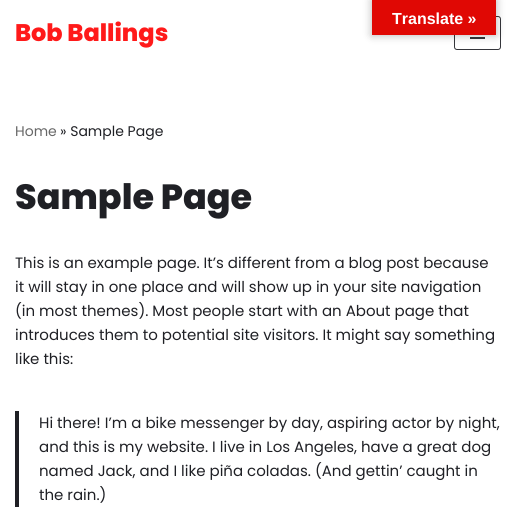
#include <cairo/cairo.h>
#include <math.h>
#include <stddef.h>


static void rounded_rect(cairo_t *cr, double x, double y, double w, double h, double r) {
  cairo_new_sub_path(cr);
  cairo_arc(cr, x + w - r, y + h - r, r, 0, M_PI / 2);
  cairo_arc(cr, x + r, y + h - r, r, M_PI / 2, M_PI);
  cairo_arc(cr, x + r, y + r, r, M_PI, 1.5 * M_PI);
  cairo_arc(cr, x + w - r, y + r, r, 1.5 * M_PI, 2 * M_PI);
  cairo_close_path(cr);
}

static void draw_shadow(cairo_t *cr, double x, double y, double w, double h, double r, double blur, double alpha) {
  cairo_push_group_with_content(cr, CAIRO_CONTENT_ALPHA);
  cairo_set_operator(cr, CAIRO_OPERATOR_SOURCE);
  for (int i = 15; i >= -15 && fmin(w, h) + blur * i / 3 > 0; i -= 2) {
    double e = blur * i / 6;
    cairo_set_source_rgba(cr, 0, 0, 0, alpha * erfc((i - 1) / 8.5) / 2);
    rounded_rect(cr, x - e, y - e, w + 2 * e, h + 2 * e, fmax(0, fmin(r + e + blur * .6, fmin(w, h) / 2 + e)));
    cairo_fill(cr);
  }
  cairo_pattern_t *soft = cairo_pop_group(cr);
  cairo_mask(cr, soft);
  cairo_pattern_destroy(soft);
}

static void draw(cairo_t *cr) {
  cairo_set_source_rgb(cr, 1, 1, 1);
  cairo_paint(cr);
  rounded_rect(cr, 454.5, 16.5, 46, 33, 2.5);
  cairo_set_source_rgb(cr, 53 / 255.0, 54 / 255.0, 59 / 255.0);
  cairo_set_line_width(cr, 1);
  cairo_stroke(cr);
  cairo_rectangle(cr, 470, 37, 15, 2);
  cairo_fill(cr);
  cairo_set_source_rgb(cr, 0, 0, 0);
  draw_shadow(cr, 372, 0, 124, 35, 0, 4.5, 0.3);
  cairo_set_source_rgb(cr, 224 / 255.0, 8 / 255.0, 4 / 255.0);
  cairo_rectangle(cr, 372, 0, 124, 35);
  cairo_fill(cr);
  cairo_set_source_rgb(cr, 31 / 255.0, 32 / 255.0, 37 / 255.0);
  cairo_rectangle(cr, 15, 411, 4, 96);
  cairo_fill(cr);
  cairo_select_font_face(cr, "Liberation Sans", CAIRO_FONT_SLANT_NORMAL, CAIRO_FONT_WEIGHT_BOLD);
  cairo_set_font_size(cr, 16);
  cairo_set_source_rgb(cr, 1, 1, 1);
  cairo_move_to(cr, 392, 24);
  cairo_show_text(cr, "Translate »");
  cairo_select_font_face(cr, "Poppins ExtraBold", CAIRO_FONT_SLANT_NORMAL, CAIRO_FONT_WEIGHT_NORMAL);
  cairo_set_font_size(cr, 24);
  cairo_set_source_rgb(cr, 1, 26 / 255.0, 26 / 255.0);
  cairo_move_to(cr, 15, 41);
  cairo_show_text(cr, "Bob Ballings");
  cairo_select_font_face(cr, "Poppins", CAIRO_FONT_SLANT_NORMAL, CAIRO_FONT_WEIGHT_NORMAL);
  cairo_set_font_size(cr, 14);
  cairo_set_source_rgb(cr, 103 / 255.0, 103 / 255.0, 103 / 255.0);
  cairo_move_to(cr, 15, 136);
  cairo_show_text(cr, "Home");
  cairo_set_source_rgb(cr, 31 / 255.0, 32 / 255.0, 37 / 255.0);
  cairo_move_to(cr, 60, 136);
  cairo_show_text(cr, "» Sample Page");
  cairo_select_font_face(cr, "Poppins ExtraBold", CAIRO_FONT_SLANT_NORMAL, CAIRO_FONT_WEIGHT_NORMAL);
  cairo_set_font_size(cr, 35);
  cairo_move_to(cr, 15, 209);
  cairo_show_text(cr, "Sample Page");
  cairo_select_font_face(cr, "Poppins", CAIRO_FONT_SLANT_NORMAL, CAIRO_FONT_WEIGHT_NORMAL);
  cairo_set_font_size(cr, 15);
  cairo_move_to(cr, 15, 268);
  cairo_show_text(cr, "This is an example page. It’s different from a blog post because");
  cairo_move_to(cr, 15, 292);
  cairo_show_text(cr, "it will stay in one place and will show up in your site navigation");
  cairo_move_to(cr, 15, 316);
  cairo_show_text(cr, "(in most themes). Most people start with an About page that");
  cairo_move_to(cr, 15, 340);
  cairo_show_text(cr, "introduces them to potential site visitors. It might say something");
  cairo_move_to(cr, 15, 364);
  cairo_show_text(cr, "like this:");
  cairo_move_to(cr, 39, 428);
  cairo_show_text(cr, "Hi there! I’m a bike messenger by day, aspiring actor by night,");
  cairo_move_to(cr, 39, 452);
  cairo_show_text(cr, "and this is my website. I live in Los Angeles, have a great dog");
  cairo_move_to(cr, 39, 476);
  cairo_show_text(cr, "named Jack, and I like piña coladas. (And gettin’ caught in");
  cairo_move_to(cr, 39, 500);
  cairo_show_text(cr, "the rain.)");
}

int main(void) {
  cairo_surface_t *surface = cairo_image_surface_create(CAIRO_FORMAT_RGB24, 516, 510);
  cairo_t *cr = cairo_create(surface);
  cairo_font_options_t *options = cairo_font_options_create();
  cairo_font_options_set_hint_metrics(options, CAIRO_HINT_METRICS_OFF);
  cairo_font_options_set_hint_style(options, CAIRO_HINT_STYLE_NONE);
  cairo_set_font_options(cr, options);
  cairo_set_miter_limit(cr, 4);
  draw(cr);
  cairo_surface_write_to_png(surface, "out.png");
  cairo_font_options_destroy(options);
  cairo_destroy(cr);
  cairo_surface_destroy(surface);
  return 0;
}
